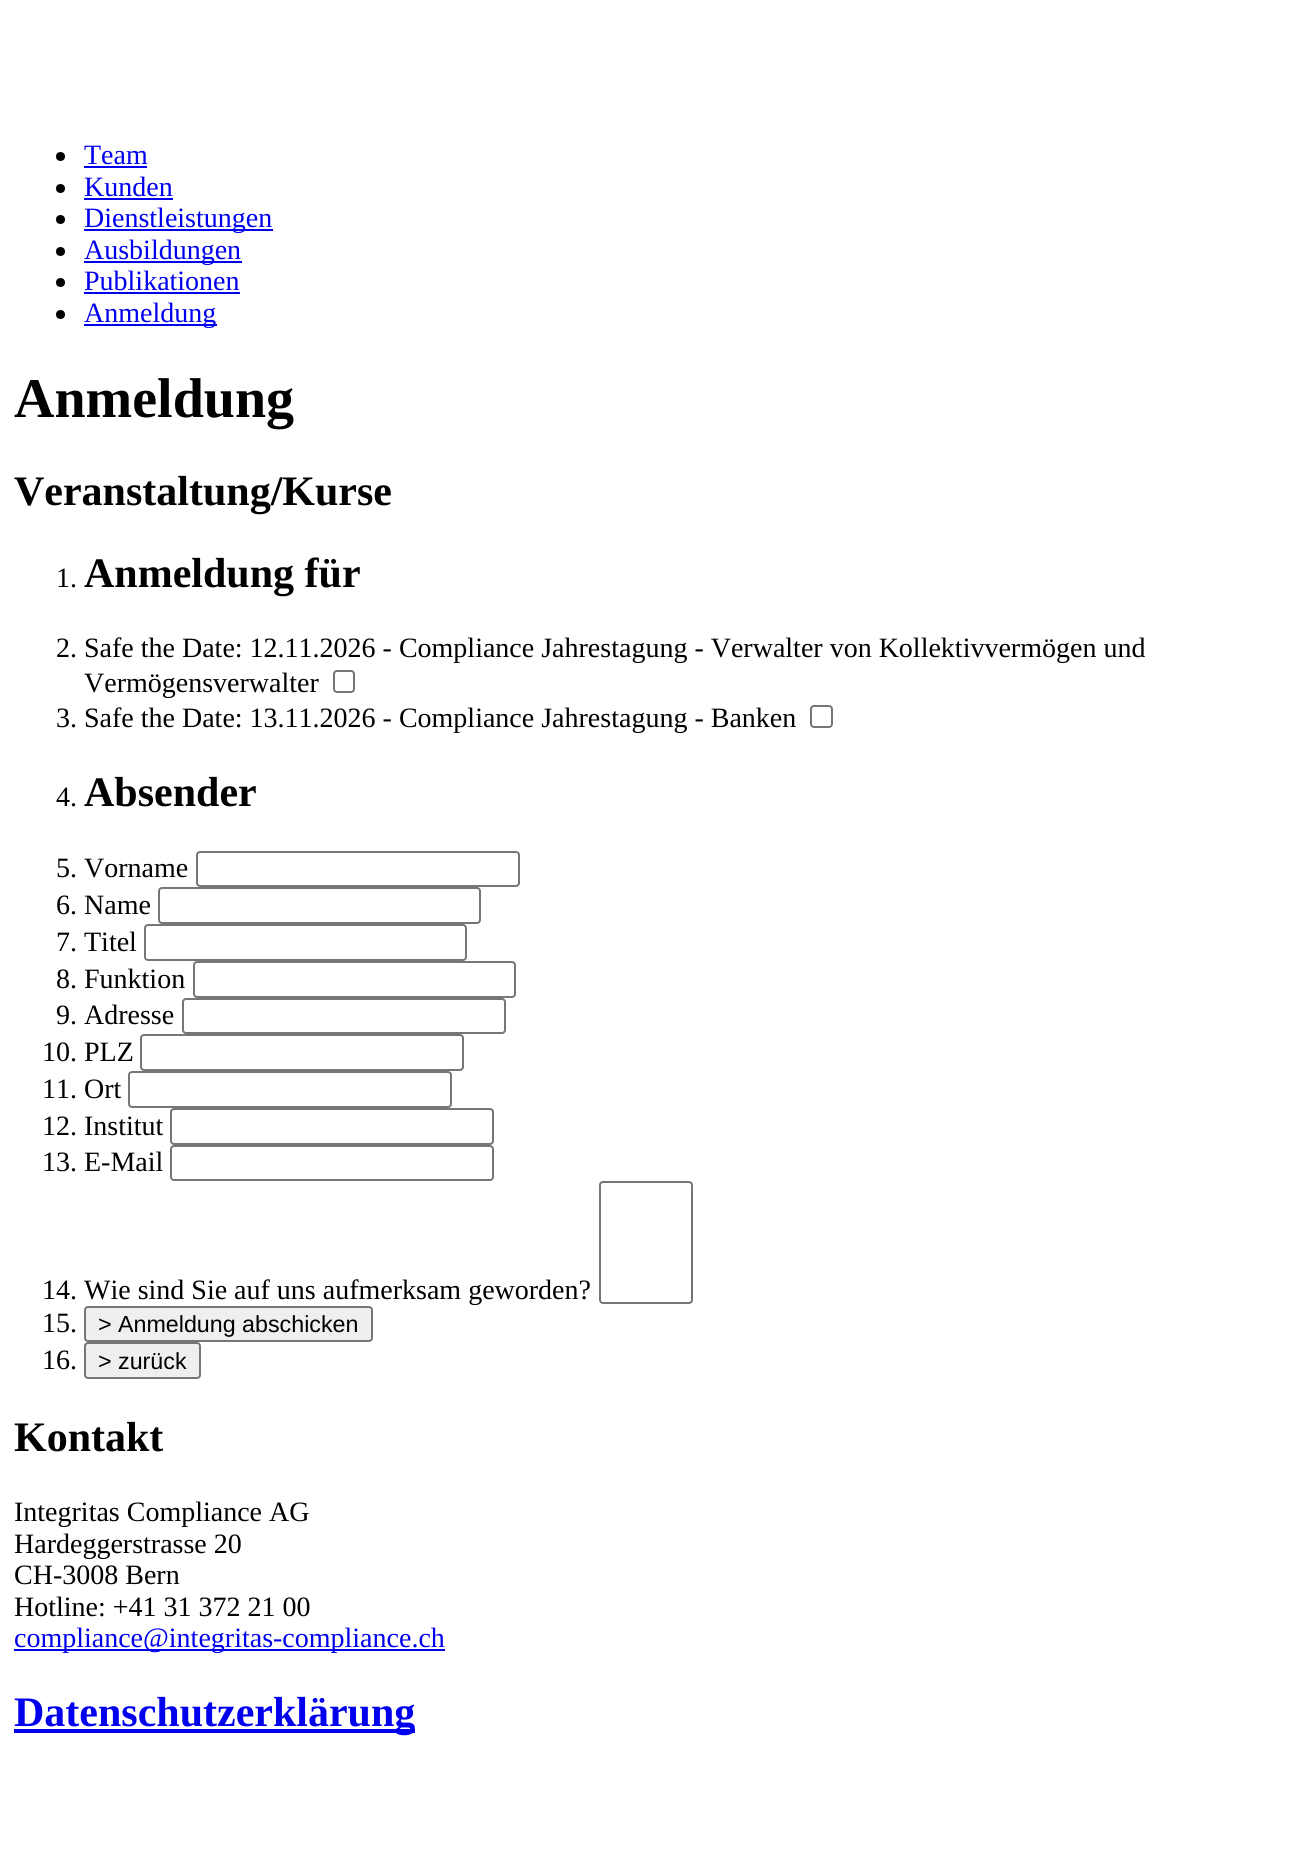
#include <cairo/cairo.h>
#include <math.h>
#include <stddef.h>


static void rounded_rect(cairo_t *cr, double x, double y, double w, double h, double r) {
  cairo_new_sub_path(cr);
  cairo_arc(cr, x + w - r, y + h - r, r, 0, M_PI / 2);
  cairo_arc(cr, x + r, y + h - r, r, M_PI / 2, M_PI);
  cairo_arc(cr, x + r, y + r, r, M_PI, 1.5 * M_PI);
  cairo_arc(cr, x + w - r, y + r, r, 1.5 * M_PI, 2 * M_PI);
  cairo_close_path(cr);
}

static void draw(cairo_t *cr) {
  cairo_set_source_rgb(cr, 1, 1, 1);
  cairo_paint(cr);
  cairo_set_source_rgb(cr, 0, 0, 0);
  cairo_arc(cr, 60.5, 156.5, 4.5, 0, 2 * M_PI);
  cairo_fill(cr);
  cairo_set_source_rgb(cr, 0, 0, 238 / 255.0);
  cairo_rectangle(cr, 84, 166, 63, 2);
  cairo_fill(cr);
  cairo_set_source_rgb(cr, 0, 0, 0);
  cairo_arc(cr, 60.5, 188.5, 4.5, 0, 2 * M_PI);
  cairo_fill(cr);
  cairo_set_source_rgb(cr, 0, 0, 238 / 255.0);
  cairo_rectangle(cr, 84, 198, 89, 2);
  cairo_fill(cr);
  cairo_set_source_rgb(cr, 0, 0, 0);
  cairo_arc(cr, 60.5, 219.5, 4.5, 0, 2 * M_PI);
  cairo_fill(cr);
  cairo_set_source_rgb(cr, 0, 0, 238 / 255.0);
  cairo_rectangle(cr, 84, 229, 189, 2);
  cairo_fill(cr);
  cairo_set_source_rgb(cr, 0, 0, 0);
  cairo_arc(cr, 60.5, 251.5, 4.5, 0, 2 * M_PI);
  cairo_fill(cr);
  cairo_set_source_rgb(cr, 0, 0, 238 / 255.0);
  cairo_rectangle(cr, 84, 261, 158, 2);
  cairo_fill(cr);
  cairo_set_source_rgb(cr, 0, 0, 0);
  cairo_arc(cr, 60.5, 282.5, 4.5, 0, 2 * M_PI);
  cairo_fill(cr);
  cairo_set_source_rgb(cr, 0, 0, 238 / 255.0);
  cairo_rectangle(cr, 84, 292, 156, 2);
  cairo_fill(cr);
  cairo_set_source_rgb(cr, 0, 0, 0);
  cairo_arc(cr, 60.5, 314.5, 4.5, 0, 2 * M_PI);
  cairo_fill(cr);
  cairo_set_source_rgb(cr, 0, 0, 238 / 255.0);
  cairo_rectangle(cr, 84, 324, 133, 2);
  cairo_fill(cr);
  rounded_rect(cr, 334, 671, 20, 21, 3);
  cairo_set_source_rgb(cr, 118 / 255.0, 118 / 255.0, 118 / 255.0);
  cairo_stroke(cr);
  rounded_rect(cr, 811, 706, 21, 21, 3);
  cairo_stroke(cr);
  rounded_rect(cr, 197, 852, 322, 34, 3);
  cairo_stroke(cr);
  rounded_rect(cr, 159, 888, 321, 35, 3);
  cairo_stroke(cr);
  rounded_rect(cr, 145, 925, 321, 35, 3);
  cairo_stroke(cr);
  rounded_rect(cr, 194, 962, 321, 35, 3);
  cairo_stroke(cr);
  rounded_rect(cr, 183, 999, 322, 34, 3);
  cairo_stroke(cr);
  rounded_rect(cr, 141, 1035, 322, 35, 3);
  cairo_stroke(cr);
  rounded_rect(cr, 129, 1072, 322, 35, 3);
  cairo_stroke(cr);
  rounded_rect(cr, 171, 1109, 322, 35, 3);
  cairo_stroke(cr);
  rounded_rect(cr, 171, 1146, 322, 34, 3);
  cairo_stroke(cr);
  rounded_rect(cr, 600, 1182, 92, 121, 3);
  cairo_stroke(cr);
  cairo_set_source_rgb(cr, 239 / 255.0, 239 / 255.0, 239 / 255.0);
  rounded_rect(cr, 85, 1307, 287, 34, 3);
  cairo_fill_preserve(cr);
  cairo_set_source_rgb(cr, 118 / 255.0, 118 / 255.0, 118 / 255.0);
  cairo_stroke(cr);
  cairo_set_source_rgb(cr, 239 / 255.0, 239 / 255.0, 239 / 255.0);
  rounded_rect(cr, 85, 1343, 115, 35, 3);
  cairo_fill_preserve(cr);
  cairo_set_source_rgb(cr, 118 / 255.0, 118 / 255.0, 118 / 255.0);
  cairo_stroke(cr);
  cairo_set_source_rgb(cr, 0, 0, 238 / 255.0);
  cairo_rectangle(cr, 14, 1649, 431, 2);
  cairo_fill(cr);
  cairo_rectangle(cr, 14, 1729, 401, 4);
  cairo_fill(cr);
  cairo_select_font_face(cr, "Liberation Serif", CAIRO_FONT_SLANT_NORMAL, CAIRO_FONT_WEIGHT_NORMAL);
  cairo_set_font_size(cr, 28);
  cairo_move_to(cr, 84, 164);
  cairo_show_text(cr, "Team");
  cairo_move_to(cr, 84, 196);
  cairo_show_text(cr, "Kunden");
  cairo_move_to(cr, 84, 227);
  cairo_show_text(cr, "Dienstleistungen");
  cairo_move_to(cr, 84, 259);
  cairo_show_text(cr, "Ausbildungen");
  cairo_move_to(cr, 84, 290);
  cairo_show_text(cr, "Publikationen");
  cairo_move_to(cr, 84, 322);
  cairo_show_text(cr, "Anmeldung");
  cairo_select_font_face(cr, "Liberation Serif", CAIRO_FONT_SLANT_NORMAL, CAIRO_FONT_WEIGHT_BOLD);
  cairo_set_font_size(cr, 56);
  cairo_set_source_rgb(cr, 0, 0, 0);
  cairo_move_to(cr, 14, 417);
  cairo_show_text(cr, "Anmeldung");
  cairo_set_font_size(cr, 42);
  cairo_move_to(cr, 14, 505);
  cairo_show_text(cr, "Veranstaltung/Kurse");
  cairo_select_font_face(cr, "Liberation Serif", CAIRO_FONT_SLANT_NORMAL, CAIRO_FONT_WEIGHT_NORMAL);
  cairo_set_font_size(cr, 28);
  cairo_move_to(cr, 56, 587);
  cairo_show_text(cr, "1.");
  cairo_select_font_face(cr, "Liberation Serif", CAIRO_FONT_SLANT_NORMAL, CAIRO_FONT_WEIGHT_BOLD);
  cairo_set_font_size(cr, 42);
  cairo_move_to(cr, 84, 587);
  cairo_show_text(cr, "Anmeldung für");
  cairo_select_font_face(cr, "Liberation Serif", CAIRO_FONT_SLANT_NORMAL, CAIRO_FONT_WEIGHT_NORMAL);
  cairo_set_font_size(cr, 28);
  cairo_move_to(cr, 56, 657);
  cairo_show_text(cr, "2. Safe the Date: 12.11.2026 - Compliance Jahrestagung - Verwalter von Kollektivvermögen und");
  cairo_move_to(cr, 84, 692);
  cairo_show_text(cr, "Vermögensverwalter");
  cairo_move_to(cr, 56, 727);
  cairo_show_text(cr, "3. Safe the Date: 13.11.2026 - Compliance Jahrestagung - Banken");
  cairo_move_to(cr, 56, 806);
  cairo_show_text(cr, "4.");
  cairo_select_font_face(cr, "Liberation Serif", CAIRO_FONT_SLANT_NORMAL, CAIRO_FONT_WEIGHT_BOLD);
  cairo_set_font_size(cr, 42);
  cairo_move_to(cr, 84, 806);
  cairo_show_text(cr, "Absender");
  cairo_select_font_face(cr, "Liberation Serif", CAIRO_FONT_SLANT_NORMAL, CAIRO_FONT_WEIGHT_NORMAL);
  cairo_set_font_size(cr, 28);
  cairo_move_to(cr, 56, 877);
  cairo_show_text(cr, "5. Vorname");
  cairo_move_to(cr, 56, 914);
  cairo_show_text(cr, "6. Name");
  cairo_move_to(cr, 56, 951);
  cairo_show_text(cr, "7. Titel");
  cairo_move_to(cr, 56, 988);
  cairo_show_text(cr, "8. Funktion");
  cairo_move_to(cr, 56, 1024);
  cairo_show_text(cr, "9. Adresse");
  cairo_move_to(cr, 42, 1061);
  cairo_show_text(cr, "10. PLZ");
  cairo_move_to(cr, 42, 1098);
  cairo_show_text(cr, "11. Ort");
  cairo_move_to(cr, 42, 1135);
  cairo_show_text(cr, "12. Institut");
  cairo_move_to(cr, 42, 1171);
  cairo_show_text(cr, "13. E-Mail");
  cairo_move_to(cr, 42, 1299);
  cairo_show_text(cr, "14. Wie sind Sie auf uns aufmerksam geworden?");
  cairo_move_to(cr, 42, 1332);
  cairo_show_text(cr, "15.");
  cairo_select_font_face(cr, "Liberation Sans", CAIRO_FONT_SLANT_NORMAL, CAIRO_FONT_WEIGHT_NORMAL);
  cairo_set_font_size(cr, 23.25);
  cairo_move_to(cr, 98, 1332);
  cairo_show_text(cr, "> Anmeldung abschicken");
  cairo_select_font_face(cr, "Liberation Serif", CAIRO_FONT_SLANT_NORMAL, CAIRO_FONT_WEIGHT_NORMAL);
  cairo_set_font_size(cr, 28);
  cairo_move_to(cr, 42, 1369);
  cairo_show_text(cr, "16.");
  cairo_select_font_face(cr, "Liberation Sans", CAIRO_FONT_SLANT_NORMAL, CAIRO_FONT_WEIGHT_NORMAL);
  cairo_set_font_size(cr, 23.25);
  cairo_move_to(cr, 98, 1369);
  cairo_show_text(cr, "> zurück");
  cairo_select_font_face(cr, "Liberation Serif", CAIRO_FONT_SLANT_NORMAL, CAIRO_FONT_WEIGHT_BOLD);
  cairo_set_font_size(cr, 42);
  cairo_move_to(cr, 14, 1451);
  cairo_show_text(cr, "Kontakt");
  cairo_select_font_face(cr, "Liberation Serif", CAIRO_FONT_SLANT_NORMAL, CAIRO_FONT_WEIGHT_NORMAL);
  cairo_set_font_size(cr, 28);
  cairo_move_to(cr, 14, 1521);
  cairo_show_text(cr, "Integritas Compliance AG");
  cairo_move_to(cr, 14, 1553);
  cairo_show_text(cr, "Hardeggerstrasse 20");
  cairo_move_to(cr, 14, 1584);
  cairo_show_text(cr, "CH-3008 Bern");
  cairo_move_to(cr, 14, 1616);
  cairo_show_text(cr, "Hotline: +41 31 372 21 00");
  cairo_set_source_rgb(cr, 0, 0, 238 / 255.0);
  cairo_move_to(cr, 14, 1647);
  cairo_show_text(cr, "compliance@integritas-compliance.ch");
  cairo_select_font_face(cr, "Liberation Serif", CAIRO_FONT_SLANT_NORMAL, CAIRO_FONT_WEIGHT_BOLD);
  cairo_set_font_size(cr, 42);
  cairo_move_to(cr, 14, 1726);
  cairo_show_text(cr, "Datenschutzerklärung");
}

int main(void) {
  cairo_surface_t *surface = cairo_image_surface_create(CAIRO_FORMAT_RGB24, 1298, 1868);
  cairo_t *cr = cairo_create(surface);
  cairo_font_options_t *options = cairo_font_options_create();
  cairo_font_options_set_hint_metrics(options, CAIRO_HINT_METRICS_OFF);
  cairo_font_options_set_hint_style(options, CAIRO_HINT_STYLE_NONE);
  cairo_set_font_options(cr, options);
  cairo_set_miter_limit(cr, 4);
  draw(cr);
  cairo_surface_write_to_png(surface, "out.png");
  cairo_font_options_destroy(options);
  cairo_destroy(cr);
  cairo_surface_destroy(surface);
  return 0;
}
